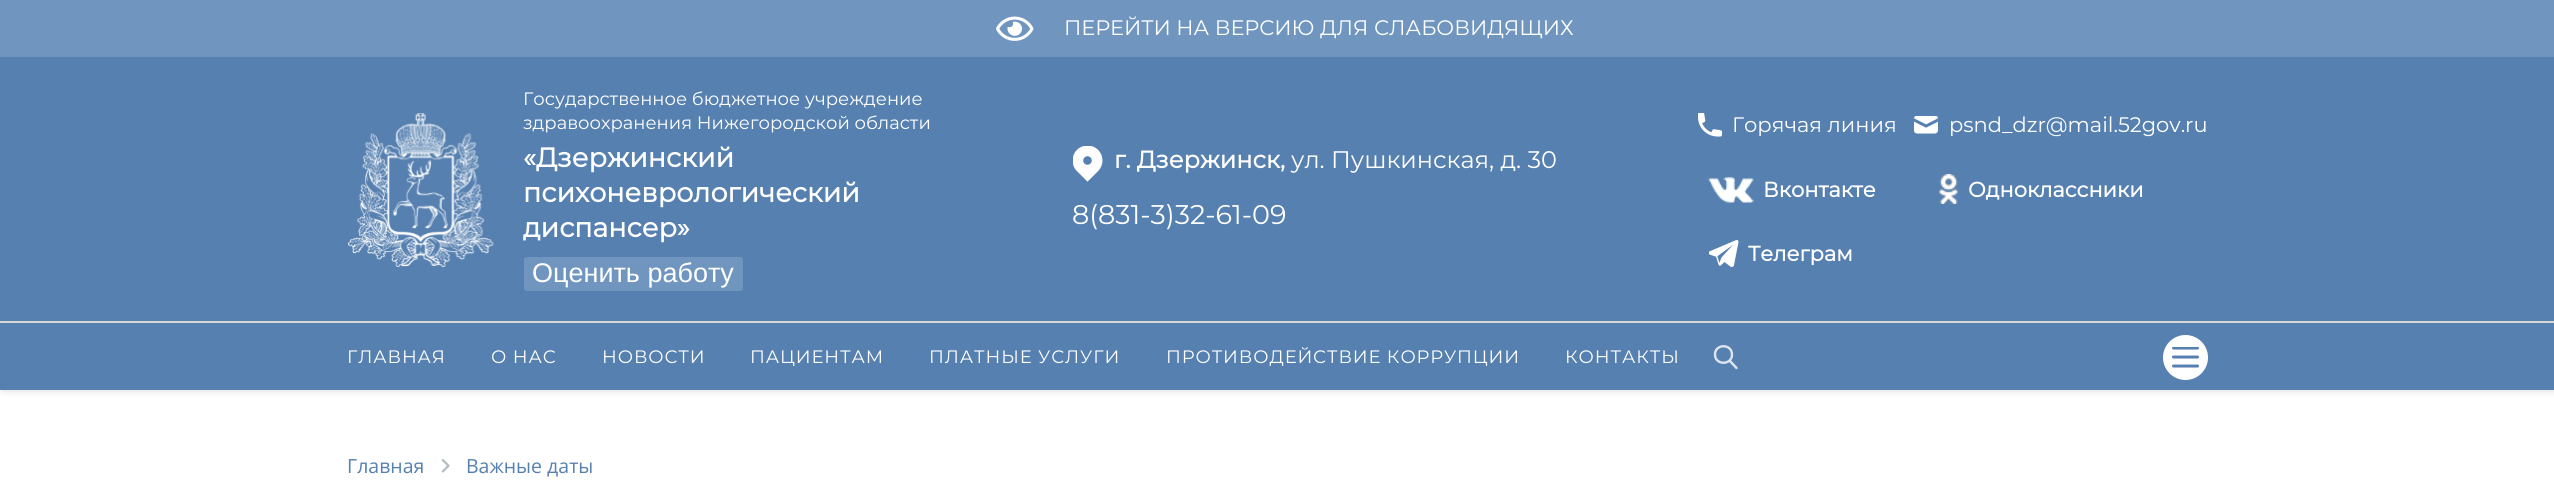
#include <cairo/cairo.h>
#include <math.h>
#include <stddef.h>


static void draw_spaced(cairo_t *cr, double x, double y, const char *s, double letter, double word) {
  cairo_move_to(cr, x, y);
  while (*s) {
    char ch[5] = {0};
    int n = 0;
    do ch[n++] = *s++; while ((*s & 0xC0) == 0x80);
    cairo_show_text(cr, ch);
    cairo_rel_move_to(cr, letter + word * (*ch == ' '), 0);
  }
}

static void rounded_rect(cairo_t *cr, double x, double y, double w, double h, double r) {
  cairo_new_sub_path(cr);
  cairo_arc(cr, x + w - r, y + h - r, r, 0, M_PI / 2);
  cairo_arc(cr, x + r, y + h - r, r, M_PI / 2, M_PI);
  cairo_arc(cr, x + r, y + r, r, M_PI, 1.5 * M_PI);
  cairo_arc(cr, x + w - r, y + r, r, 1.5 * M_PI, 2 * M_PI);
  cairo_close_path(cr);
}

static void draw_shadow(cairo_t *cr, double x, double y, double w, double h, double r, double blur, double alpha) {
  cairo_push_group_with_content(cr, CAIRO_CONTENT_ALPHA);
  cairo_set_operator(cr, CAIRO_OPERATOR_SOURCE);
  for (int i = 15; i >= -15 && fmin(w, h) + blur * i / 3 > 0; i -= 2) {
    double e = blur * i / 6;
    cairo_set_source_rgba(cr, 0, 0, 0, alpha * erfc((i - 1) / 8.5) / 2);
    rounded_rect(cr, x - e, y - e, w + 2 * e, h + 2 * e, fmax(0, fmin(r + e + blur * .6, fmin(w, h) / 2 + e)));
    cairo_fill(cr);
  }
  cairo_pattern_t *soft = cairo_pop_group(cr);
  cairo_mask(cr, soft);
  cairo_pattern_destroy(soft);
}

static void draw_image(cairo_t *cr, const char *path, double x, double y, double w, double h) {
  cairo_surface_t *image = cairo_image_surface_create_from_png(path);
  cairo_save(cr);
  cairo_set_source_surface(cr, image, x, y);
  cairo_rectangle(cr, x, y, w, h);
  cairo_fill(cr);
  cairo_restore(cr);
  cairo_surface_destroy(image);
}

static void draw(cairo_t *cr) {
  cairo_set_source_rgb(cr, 1, 1, 1);
  cairo_paint(cr);
  cairo_set_source_rgb(cr, 112 / 255.0, 150 / 255.0, 192 / 255.0);
  cairo_rectangle(cr, 0, 0, 2554, 57);
  cairo_fill(cr);
  draw_image(cr, "images/1.png", 996, 16, 38, 25);
  cairo_set_source_rgb(cr, 0, 0, 0);
  draw_shadow(cr, 2, 59, 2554, 333, 0, 3, 0.1);
  cairo_set_source_rgb(cr, 86 / 255.0, 128 / 255.0, 176 / 255.0);
  cairo_rectangle(cr, 0, 57, 2554, 333);
  cairo_fill(cr);
  draw_image(cr, "images/2.png", 348, 113, 146, 154);
  cairo_set_source_rgb(cr, 112 / 255.0, 150 / 255.0, 192 / 255.0);
  rounded_rect(cr, 524, 257, 219, 34, 3);
  cairo_fill(cr);
  draw_image(cr, "images/3.png", 1073, 146, 30, 36);
  draw_image(cr, "images/4.png", 1698, 113, 24, 24);
  draw_image(cr, "images/5.png", 1914, 116, 24, 18);
  draw_image(cr, "images/6.png", 1708, 177, 46, 26);
  draw_image(cr, "images/7.png", 1939, 174, 19, 30);
  draw_image(cr, "images/8.png", 1709, 240, 30, 27);
  cairo_set_source_rgb(cr, 215 / 255.0, 215 / 255.0, 215 / 255.0);
  cairo_rectangle(cr, 0, 321, 2554, 2);
  cairo_fill(cr);
  cairo_new_path(cr);
  cairo_move_to(cr, 1736.5, 368);
  cairo_line_to(cr, 1729.5, 360.5);
  cairo_move_to(cr, 1732, 354.5);
  cairo_curve_to(cr, 1732, 365.5, 1715, 365.5, 1715, 354.5);
  cairo_curve_to(cr, 1715, 343.5, 1732, 343.5, 1732, 354.5);
  cairo_close_path(cr);
  cairo_set_source_rgb(cr, 221 / 255.0, 230 / 255.0, 239 / 255.0);
  cairo_set_line_width(cr, 2.4);
  cairo_set_line_cap(cr, CAIRO_LINE_CAP_ROUND);
  cairo_set_line_join(cr, CAIRO_LINE_JOIN_ROUND);
  cairo_stroke(cr);
  cairo_set_source_rgb(cr, 1, 1, 1);
  cairo_arc(cr, 2185.5, 357.5, 22.5, 0, 2 * M_PI);
  cairo_fill(cr);
  cairo_save(cr);
  cairo_rectangle(cr, 2172, 347, 27, 21);
  cairo_clip(cr);
  cairo_new_path(cr);
  cairo_move_to(cr, 2173.5, 348);
  cairo_line_to(cr, 2197.5, 348);
  cairo_move_to(cr, 2173.5, 357);
  cairo_line_to(cr, 2197.5, 357);
  cairo_move_to(cr, 2173.5, 366);
  cairo_line_to(cr, 2197.5, 366);
  cairo_set_source_rgb(cr, 86 / 255.0, 128 / 255.0, 176 / 255.0);
  cairo_set_line_width(cr, 3);
  cairo_stroke(cr);
  cairo_restore(cr);
  draw_image(cr, "images/9.png", 441, 459, 9, 14);
  cairo_select_font_face(cr, "Montserrat", CAIRO_FONT_SLANT_NORMAL, CAIRO_FONT_WEIGHT_NORMAL);
  cairo_set_font_size(cr, 21);
  cairo_move_to(cr, 1064, 35);
  cairo_show_text(cr, "ПЕРЕЙТИ НА ВЕРСИЮ ДЛЯ СЛАБОВИДЯЩИХ");
  cairo_set_font_size(cr, 18);
  cairo_move_to(cr, 523, 105);
  cairo_show_text(cr, "Государственное бюджетное учреждение");
  cairo_move_to(cr, 523, 129);
  cairo_show_text(cr, "здравоохранения Нижегородской области");
  cairo_select_font_face(cr, "Montserrat", CAIRO_FONT_SLANT_NORMAL, CAIRO_FONT_WEIGHT_BOLD);
  cairo_set_font_size(cr, 27);
  cairo_move_to(cr, 523, 167);
  cairo_show_text(cr, "«Дзержинский");
  cairo_move_to(cr, 523, 202);
  cairo_show_text(cr, "психоневрологический");
  cairo_move_to(cr, 523, 237);
  cairo_show_text(cr, "диспансер»");
  cairo_select_font_face(cr, "Liberation Sans", CAIRO_FONT_SLANT_NORMAL, CAIRO_FONT_WEIGHT_NORMAL);
  cairo_move_to(cr, 532, 282);
  cairo_show_text(cr, "Оценить работу");
  cairo_select_font_face(cr, "Montserrat", CAIRO_FONT_SLANT_NORMAL, CAIRO_FONT_WEIGHT_BOLD);
  cairo_set_font_size(cr, 24);
  cairo_move_to(cr, 1114, 168);
  cairo_show_text(cr, "г. Дзержинск,");
  cairo_select_font_face(cr, "Montserrat", CAIRO_FONT_SLANT_NORMAL, CAIRO_FONT_WEIGHT_NORMAL);
  cairo_move_to(cr, 1291, 168);
  cairo_show_text(cr, "ул. Пушкинская, д. 30");
  cairo_set_font_size(cr, 27);
  cairo_move_to(cr, 1072, 224);
  cairo_show_text(cr, "8(831-3)32-61-09");
  cairo_set_font_size(cr, 21);
  cairo_move_to(cr, 1732, 132);
  cairo_show_text(cr, "Горячая линия");
  cairo_move_to(cr, 1949, 132);
  cairo_show_text(cr, "psnd_dzr@mail.52gov.ru");
  cairo_select_font_face(cr, "Montserrat", CAIRO_FONT_SLANT_NORMAL, CAIRO_FONT_WEIGHT_BOLD);
  cairo_move_to(cr, 1763, 197);
  cairo_show_text(cr, "Вконтакте");
  cairo_move_to(cr, 1968, 197);
  cairo_show_text(cr, "Одноклассники");
  cairo_move_to(cr, 1748, 261);
  cairo_show_text(cr, "Телеграм");
  cairo_select_font_face(cr, "Montserrat", CAIRO_FONT_SLANT_NORMAL, CAIRO_FONT_WEIGHT_NORMAL);
  cairo_set_font_size(cr, 18);
  draw_spaced(cr, 347, 363, "ГЛАВНАЯ", 0.9, 0);
  draw_spaced(cr, 491, 363, "О НАС", 0.9, 0);
  draw_spaced(cr, 602, 363, "НОВОСТИ", 0.9, 0);
  draw_spaced(cr, 750, 363, "ПАЦИЕНТАМ", 0.9, 0);
  draw_spaced(cr, 929, 363, "ПЛАТНЫЕ УСЛУГИ", 0.9, 0);
  draw_spaced(cr, 1166, 363, "ПРОТИВОДЕЙСТВИЕ КОРРУПЦИИ", 0.9, 0);
  draw_spaced(cr, 1565, 363, "КОНТАКТЫ", 0.9, 0);
  cairo_select_font_face(cr, "Open Sans", CAIRO_FONT_SLANT_NORMAL, CAIRO_FONT_WEIGHT_NORMAL);
  cairo_set_font_size(cr, 19.5);
  cairo_set_source_rgb(cr, 86 / 255.0, 128 / 255.0, 176 / 255.0);
  cairo_move_to(cr, 347, 473);
  cairo_show_text(cr, "Главная");
  cairo_move_to(cr, 466, 473);
  cairo_show_text(cr, "Важные даты");
}

int main(void) {
  cairo_surface_t *surface = cairo_image_surface_create(CAIRO_FORMAT_RGB24, 2554, 500);
  cairo_t *cr = cairo_create(surface);
  cairo_font_options_t *options = cairo_font_options_create();
  cairo_font_options_set_hint_metrics(options, CAIRO_HINT_METRICS_OFF);
  cairo_font_options_set_hint_style(options, CAIRO_HINT_STYLE_NONE);
  cairo_set_font_options(cr, options);
  cairo_set_miter_limit(cr, 4);
  draw(cr);
  cairo_surface_write_to_png(surface, "out.png");
  cairo_font_options_destroy(options);
  cairo_destroy(cr);
  cairo_surface_destroy(surface);
  return 0;
}
